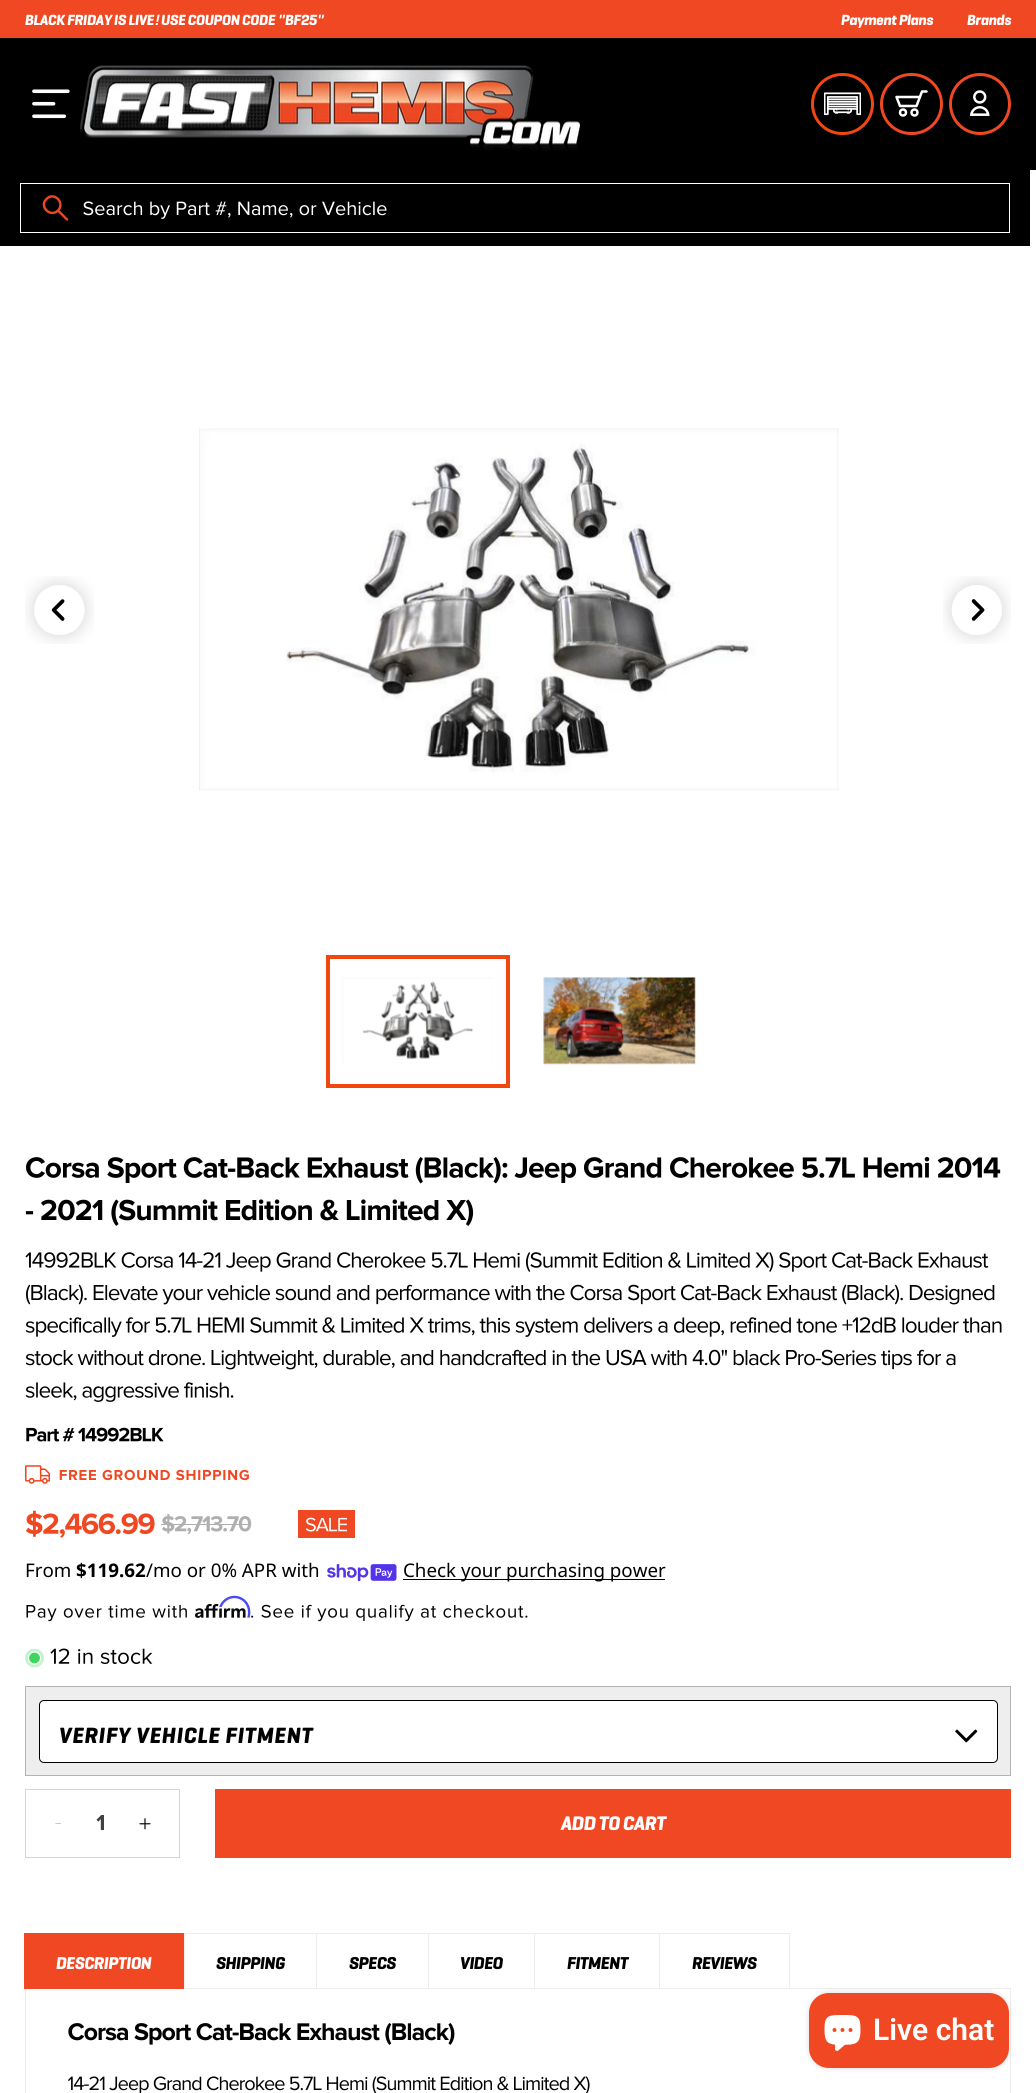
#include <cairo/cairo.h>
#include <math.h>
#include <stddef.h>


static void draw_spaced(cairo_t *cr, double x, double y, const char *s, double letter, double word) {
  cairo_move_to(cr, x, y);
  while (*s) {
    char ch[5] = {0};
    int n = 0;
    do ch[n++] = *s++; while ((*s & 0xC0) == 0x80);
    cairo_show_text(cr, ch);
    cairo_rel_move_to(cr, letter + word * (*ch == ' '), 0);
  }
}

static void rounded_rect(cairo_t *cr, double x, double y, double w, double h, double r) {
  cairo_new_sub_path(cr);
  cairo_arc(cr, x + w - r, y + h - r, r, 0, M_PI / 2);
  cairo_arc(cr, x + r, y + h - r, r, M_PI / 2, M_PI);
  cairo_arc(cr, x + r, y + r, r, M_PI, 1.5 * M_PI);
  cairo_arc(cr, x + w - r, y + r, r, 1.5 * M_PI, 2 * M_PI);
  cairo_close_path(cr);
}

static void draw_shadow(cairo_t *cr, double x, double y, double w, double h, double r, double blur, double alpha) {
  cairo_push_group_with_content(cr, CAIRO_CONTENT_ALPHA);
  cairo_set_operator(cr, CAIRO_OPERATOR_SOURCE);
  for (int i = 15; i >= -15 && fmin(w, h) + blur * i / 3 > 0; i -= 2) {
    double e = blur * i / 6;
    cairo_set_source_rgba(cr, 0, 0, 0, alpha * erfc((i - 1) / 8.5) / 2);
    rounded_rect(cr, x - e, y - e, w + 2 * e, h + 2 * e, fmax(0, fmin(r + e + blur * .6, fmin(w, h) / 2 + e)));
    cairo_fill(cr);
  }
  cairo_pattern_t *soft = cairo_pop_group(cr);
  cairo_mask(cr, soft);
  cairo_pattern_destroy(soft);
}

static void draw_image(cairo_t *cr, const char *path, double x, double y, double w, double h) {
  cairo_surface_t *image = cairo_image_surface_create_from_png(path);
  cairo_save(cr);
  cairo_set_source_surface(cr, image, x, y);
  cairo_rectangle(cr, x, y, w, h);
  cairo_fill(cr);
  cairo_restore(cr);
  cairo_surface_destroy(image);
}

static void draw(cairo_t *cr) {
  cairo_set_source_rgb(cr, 1, 1, 1);
  cairo_paint(cr);
  cairo_set_source_rgb(cr, 239 / 255.0, 72 / 255.0, 35 / 255.0);
  cairo_rectangle(cr, 0, 0, 1036, 38);
  cairo_fill(cr);
  cairo_set_source_rgb(cr, 0, 0, 0);
  cairo_rectangle(cr, 0, 38, 1036, 132);
  cairo_fill(cr);
  draw_image(cr, "images/1.png", 32, 89, 38, 30);
  draw_image(cr, "images/2.png", 80, 65, 500, 86);
  rounded_rect(cr, 812.5, 74.5, 60, 59, 29.5);
  cairo_set_source_rgb(cr, 242 / 255.0, 71 / 255.0, 17 / 255.0);
  cairo_set_line_width(cr, 3);
  cairo_stroke(cr);
  draw_image(cr, "images/3.png", 824, 92, 37, 24);
  rounded_rect(cr, 881.5, 74.5, 60, 59, 29.5);
  cairo_set_source_rgb(cr, 239 / 255.0, 72 / 255.0, 35 / 255.0);
  cairo_stroke(cr);
  cairo_new_path(cr);
  cairo_move_to(cr, 926.5, 91.5);
  cairo_line_to(cr, 922, 91.5);
  cairo_line_to(cr, 916.5, 106);
  cairo_line_to(cr, 900, 106);
  cairo_line_to(cr, 896.5, 97);
  cairo_line_to(cr, 919.5, 97);
  cairo_set_source_rgb(cr, 1, 1, 1);
  cairo_set_line_width(cr, 2.5);
  cairo_set_line_cap(cr, CAIRO_LINE_CAP_ROUND);
  cairo_set_line_join(cr, CAIRO_LINE_JOIN_ROUND);
  cairo_stroke(cr);
  cairo_arc(cr, 903, 112.5, 3, 0, 2 * M_PI);
  cairo_set_line_cap(cr, CAIRO_LINE_CAP_BUTT);
  cairo_set_line_join(cr, CAIRO_LINE_JOIN_MITER);
  cairo_stroke(cr);
  cairo_arc(cr, 914.5, 112.5, 3, 0, 2 * M_PI);
  cairo_stroke(cr);
  cairo_arc(cr, 980, 104, 29.5, 0, 2 * M_PI);
  cairo_set_source_rgb(cr, 239 / 255.0, 72 / 255.0, 35 / 255.0);
  cairo_set_line_width(cr, 3);
  cairo_stroke(cr);
  draw_image(cr, "images/4.png", 970, 90, 20, 26);
  cairo_set_source_rgb(cr, 0, 0, 0);
  cairo_rectangle(cr, 0, 170, 1030, 76);
  cairo_fill(cr);
  cairo_rectangle(cr, 20.5, 183.5, 989, 49);
  cairo_set_source_rgb(cr, 1, 1, 1);
  cairo_set_line_width(cr, 1);
  cairo_stroke(cr);
  draw_image(cr, "images/5.png", 83, 201, 304, 18);
  cairo_new_path(cr);
  cairo_move_to(cr, 46.5, 199);
  cairo_curve_to(cr, 54, 191, 65.5, 203, 58, 210.5);
  cairo_curve_to(cr, 50.5, 218, 38.5, 206.5, 46.5, 199);
  cairo_close_path(cr);
  cairo_set_source_rgb(cr, 239 / 255.0, 71 / 255.0, 34 / 255.0);
  cairo_set_line_width(cr, 2.4);
  cairo_stroke(cr);
  cairo_new_path(cr);
  cairo_move_to(cr, 59, 211.5);
  cairo_line_to(cr, 67, 219.5);
  cairo_set_line_cap(cr, CAIRO_LINE_CAP_ROUND);
  cairo_stroke(cr);
  draw_image(cr, "images/6.png", 25, 576, 69, 68);
  draw_image(cr, "images/7.png", 199, 428, 640, 363);
  draw_image(cr, "images/8.png", 943, 576, 68, 68);
  cairo_rectangle(cr, 328, 957, 180, 129);
  cairo_set_source_rgb(cr, 242 / 255.0, 70 / 255.0, 15 / 255.0);
  cairo_set_line_width(cr, 4);
  cairo_set_line_cap(cr, CAIRO_LINE_CAP_BUTT);
  cairo_stroke(cr);
  draw_image(cr, "images/9.png", 342, 977, 151, 86);
  draw_image(cr, "images/10.png", 543, 977, 153, 88);
  draw_image(cr, "images/11.png", 26, 1157, 975, 27);
  draw_image(cr, "images/12.png", 25, 1199, 449, 27);
  draw_image(cr, "images/13.png", 25, 1252, 964, 20);
  draw_image(cr, "images/14.png", 26, 1284, 969, 21);
  draw_image(cr, "images/15.png", 25, 1317, 977, 20);
  draw_image(cr, "images/16.png", 25, 1349, 931, 21);
  draw_image(cr, "images/17.png", 25, 1382, 209, 20);
  draw_image(cr, "images/18.png", 26, 1427, 49, 15);
  draw_image(cr, "images/19.png", 78, 1427, 86, 15);
  draw_image(cr, "images/20.png", 25, 1465, 25, 19);
  draw_image(cr, "images/21.png", 59, 1469, 190, 12);
  draw_image(cr, "images/22.png", 26, 1510, 129, 28);
  draw_image(cr, "images/23.png", 162, 1514, 90, 21);
  cairo_set_source_rgb(cr, 175 / 255.0, 175 / 255.0, 175 / 255.0);
  cairo_rectangle(cr, 161, 1524, 90, 1);
  cairo_fill(cr);
  cairo_set_source_rgb(cr, 239 / 255.0, 72 / 255.0, 35 / 255.0);
  cairo_rectangle(cr, 298, 1510, 57, 28);
  cairo_fill(cr);
  draw_image(cr, "images/24.png", 305, 1517, 43, 15);
  draw_image(cr, "images/25.png", 327, 1564, 70, 17);
  cairo_set_source_rgb(cr, 0, 0, 0);
  cairo_rectangle(cr, 403, 1579, 262, 1);
  cairo_fill(cr);
  draw_image(cr, "images/26.png", 26, 1605, 161, 17);
  draw_image(cr, "images/28.png", 195, 1604, 51, 14);
  draw_image(cr, "images/27.png", 219, 1595, 32, 23);
  draw_image(cr, "images/29.png", 251, 1604, 277, 18);
  cairo_save(cr);
  cairo_rectangle(cr, 25, 1649, 19, 19);
  cairo_clip(cr);
  cairo_set_source_rgb(cr, 197 / 255.0, 243 / 255.0, 207 / 255.0);
  cairo_arc(cr, 34.5, 1658, 9.5, 0, 2 * M_PI);
  cairo_fill(cr);
  cairo_restore(cr);
  cairo_set_source_rgb(cr, 62 / 255.0, 214 / 255.0, 96 / 255.0);
  cairo_arc(cr, 34.5, 1658, 6, 0, 2 * M_PI);
  cairo_fill_preserve(cr);
  cairo_set_source_rgb(cr, 1, 1, 1);
  cairo_set_line_width(cr, 1.2);
  cairo_stroke(cr);
  draw_image(cr, "images/30.png", 50, 1648, 103, 16);
  cairo_set_source_rgb(cr, 238 / 255.0, 238 / 255.0, 238 / 255.0);
  cairo_rectangle(cr, 25.5, 1686.5, 985, 89);
  cairo_fill_preserve(cr);
  cairo_set_source_rgb(cr, 179 / 255.0, 179 / 255.0, 179 / 255.0);
  cairo_set_line_width(cr, 1);
  cairo_stroke(cr);
  cairo_set_source_rgb(cr, 1, 1, 1);
  rounded_rect(cr, 39.5, 1700.5, 958, 62, 4.5);
  cairo_fill_preserve(cr);
  cairo_set_source_rgb(cr, 0, 0, 0);
  cairo_stroke(cr);
  draw_image(cr, "images/31.png", 955, 1729, 23, 14);
  cairo_rectangle(cr, 25.5, 1789.5, 154, 68);
  cairo_set_source_rgb(cr, 213 / 255.0, 213 / 255.0, 213 / 255.0);
  cairo_stroke(cr);
  draw_image(cr, "images/32.png", 55, 1823, 6, 1);
  draw_image(cr, "images/33.png", 96, 1815, 8, 15);
  draw_image(cr, "images/34.png", 139, 1818, 12, 12);
  cairo_set_source_rgb(cr, 239 / 255.0, 72 / 255.0, 35 / 255.0);
  cairo_rectangle(cr, 215, 1789, 796, 69);
  cairo_fill(cr);
  cairo_rectangle(cr, 25.5, 1988.5, 985, 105);
  cairo_set_source_rgb(cr, 237 / 255.0, 237 / 255.0, 237 / 255.0);
  cairo_stroke(cr);
  cairo_set_source_rgb(cr, 239 / 255.0, 72 / 255.0, 35 / 255.0);
  cairo_rectangle(cr, 24, 1933, 160, 56);
  cairo_fill(cr);
  cairo_rectangle(cr, 184.5, 1933.5, 133, 55);
  cairo_set_source_rgb(cr, 237 / 255.0, 237 / 255.0, 237 / 255.0);
  cairo_stroke(cr);
  cairo_set_source_rgb(cr, 1, 1, 1);
  cairo_rectangle(cr, 317, 1934, 1, 54);
  cairo_fill(cr);
  cairo_rectangle(cr, 316.5, 1933.5, 112, 55);
  cairo_set_source_rgb(cr, 237 / 255.0, 237 / 255.0, 237 / 255.0);
  cairo_stroke(cr);
  cairo_rectangle(cr, 428.5, 1933.5, 106, 55);
  cairo_stroke(cr);
  cairo_rectangle(cr, 534.5, 1933.5, 125, 55);
  cairo_stroke(cr);
  cairo_rectangle(cr, 659.5, 1933.5, 130, 55);
  cairo_stroke(cr);
  draw_image(cr, "images/35.png", 68, 2023, 387, 22);
  draw_image(cr, "images/36.png", 68, 2076, 522, 17);
  cairo_set_source_rgb(cr, 0, 0, 0);
  draw_shadow(cr, 809, 1993, 200, 75, 20, 3, 0.15);
  cairo_set_source_rgb(cr, 239 / 255.0, 72 / 255.0, 35 / 255.0);
  rounded_rect(cr, 809, 1993, 200, 75, 20);
  cairo_fill(cr);
  draw_image(cr, "images/37.png", 824, 2015, 37, 36);
  cairo_select_font_face(cr, "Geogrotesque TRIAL", CAIRO_FONT_SLANT_ITALIC, CAIRO_FONT_WEIGHT_BOLD);
  cairo_set_font_size(cr, 15);
  cairo_set_source_rgb(cr, 1, 1, 1);
  draw_spaced(cr, 25, 25, "BLACK FRIDAY IS LIVE", -0.4, 0);
  cairo_select_font_face(cr, "Liberation Sans", CAIRO_FONT_SLANT_ITALIC, CAIRO_FONT_WEIGHT_BOLD);
  draw_spaced(cr, 155, 25, "!", -0.4, 0);
  cairo_select_font_face(cr, "Geogrotesque TRIAL", CAIRO_FONT_SLANT_ITALIC, CAIRO_FONT_WEIGHT_BOLD);
  draw_spaced(cr, 161, 25, "USE COUPON CODE", -0.4, 0);
  cairo_select_font_face(cr, "Liberation Sans", CAIRO_FONT_SLANT_ITALIC, CAIRO_FONT_WEIGHT_BOLD);
  draw_spaced(cr, 278, 25, "\"", -0.4, 0);
  cairo_select_font_face(cr, "Geogrotesque TRIAL", CAIRO_FONT_SLANT_ITALIC, CAIRO_FONT_WEIGHT_BOLD);
  draw_spaced(cr, 285, 25, "BF25", -0.4, 0);
  cairo_select_font_face(cr, "Liberation Sans", CAIRO_FONT_SLANT_ITALIC, CAIRO_FONT_WEIGHT_BOLD);
  draw_spaced(cr, 317, 25, "\"", -0.4, 0);
  cairo_select_font_face(cr, "Geogrotesque TRIAL", CAIRO_FONT_SLANT_ITALIC, CAIRO_FONT_WEIGHT_BOLD);
  draw_spaced(cr, 841, 25, "Payment Plans", -0.4, 0);
  draw_spaced(cr, 967, 25, "Brands", -0.4, 0);
  cairo_select_font_face(cr, "Noto Sans", CAIRO_FONT_SLANT_NORMAL, CAIRO_FONT_WEIGHT_NORMAL);
  cairo_set_font_size(cr, 18.75);
  cairo_set_source_rgb(cr, 0, 0, 0);
  cairo_move_to(cr, 25, 1577);
  cairo_show_text(cr, "From");
  cairo_select_font_face(cr, "Noto Sans", CAIRO_FONT_SLANT_NORMAL, CAIRO_FONT_WEIGHT_BOLD);
  cairo_move_to(cr, 76, 1577);
  cairo_show_text(cr, "$119.62");
  cairo_select_font_face(cr, "Noto Sans", CAIRO_FONT_SLANT_NORMAL, CAIRO_FONT_WEIGHT_NORMAL);
  cairo_move_to(cr, 146, 1577);
  cairo_show_text(cr, "/mo or 0% APR with");
  cairo_move_to(cr, 403, 1577);
  cairo_show_text(cr, "Check your purchasing power");
  cairo_select_font_face(cr, "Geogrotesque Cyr", CAIRO_FONT_SLANT_ITALIC, CAIRO_FONT_WEIGHT_BOLD);
  cairo_set_font_size(cr, 22.5);
  draw_spaced(cr, 59, 1743, "VERIFY VEHICLE FITMENT", 0.75, 0);
  cairo_select_font_face(cr, "Geogrotesque TRIAL", CAIRO_FONT_SLANT_ITALIC, CAIRO_FONT_WEIGHT_BOLD);
  cairo_set_font_size(cr, 20);
  cairo_set_source_rgb(cr, 1, 1, 1);
  draw_spaced(cr, 561, 1830, "ADD TO CART", -0.5, 0);
  cairo_select_font_face(cr, "Geogrotesque Cyr", CAIRO_FONT_SLANT_ITALIC, CAIRO_FONT_WEIGHT_BOLD);
  cairo_set_font_size(cr, 17.5);
  draw_spaced(cr, 56, 1969, "DESCRIPTION", -0.5, 0);
  cairo_set_source_rgb(cr, 0, 0, 0);
  draw_spaced(cr, 216, 1969, "SHIPPING", -0.5, 0);
  draw_spaced(cr, 349, 1969, "SPECS", -0.5, 0);
  draw_spaced(cr, 460, 1969, "VIDEO", -0.5, 0);
  draw_spaced(cr, 567, 1969, "FITMENT", -0.5, 0);
  draw_spaced(cr, 692, 1969, "REVIEWS", -0.5, 0);
  cairo_select_font_face(cr, "Roboto SemiBold", CAIRO_FONT_SLANT_NORMAL, CAIRO_FONT_WEIGHT_NORMAL);
  cairo_set_font_size(cr, 30);
  cairo_set_source_rgb(cr, 1, 1, 1);
  cairo_move_to(cr, 873, 2040);
  cairo_show_text(cr, "Live chat");
}

int main(void) {
  cairo_surface_t *surface = cairo_image_surface_create(CAIRO_FORMAT_RGB24, 1036, 2093);
  cairo_t *cr = cairo_create(surface);
  cairo_font_options_t *options = cairo_font_options_create();
  cairo_font_options_set_hint_metrics(options, CAIRO_HINT_METRICS_OFF);
  cairo_font_options_set_hint_style(options, CAIRO_HINT_STYLE_NONE);
  cairo_set_font_options(cr, options);
  cairo_set_miter_limit(cr, 4);
  draw(cr);
  cairo_surface_write_to_png(surface, "out.png");
  cairo_font_options_destroy(options);
  cairo_destroy(cr);
  cairo_surface_destroy(surface);
  return 0;
}
